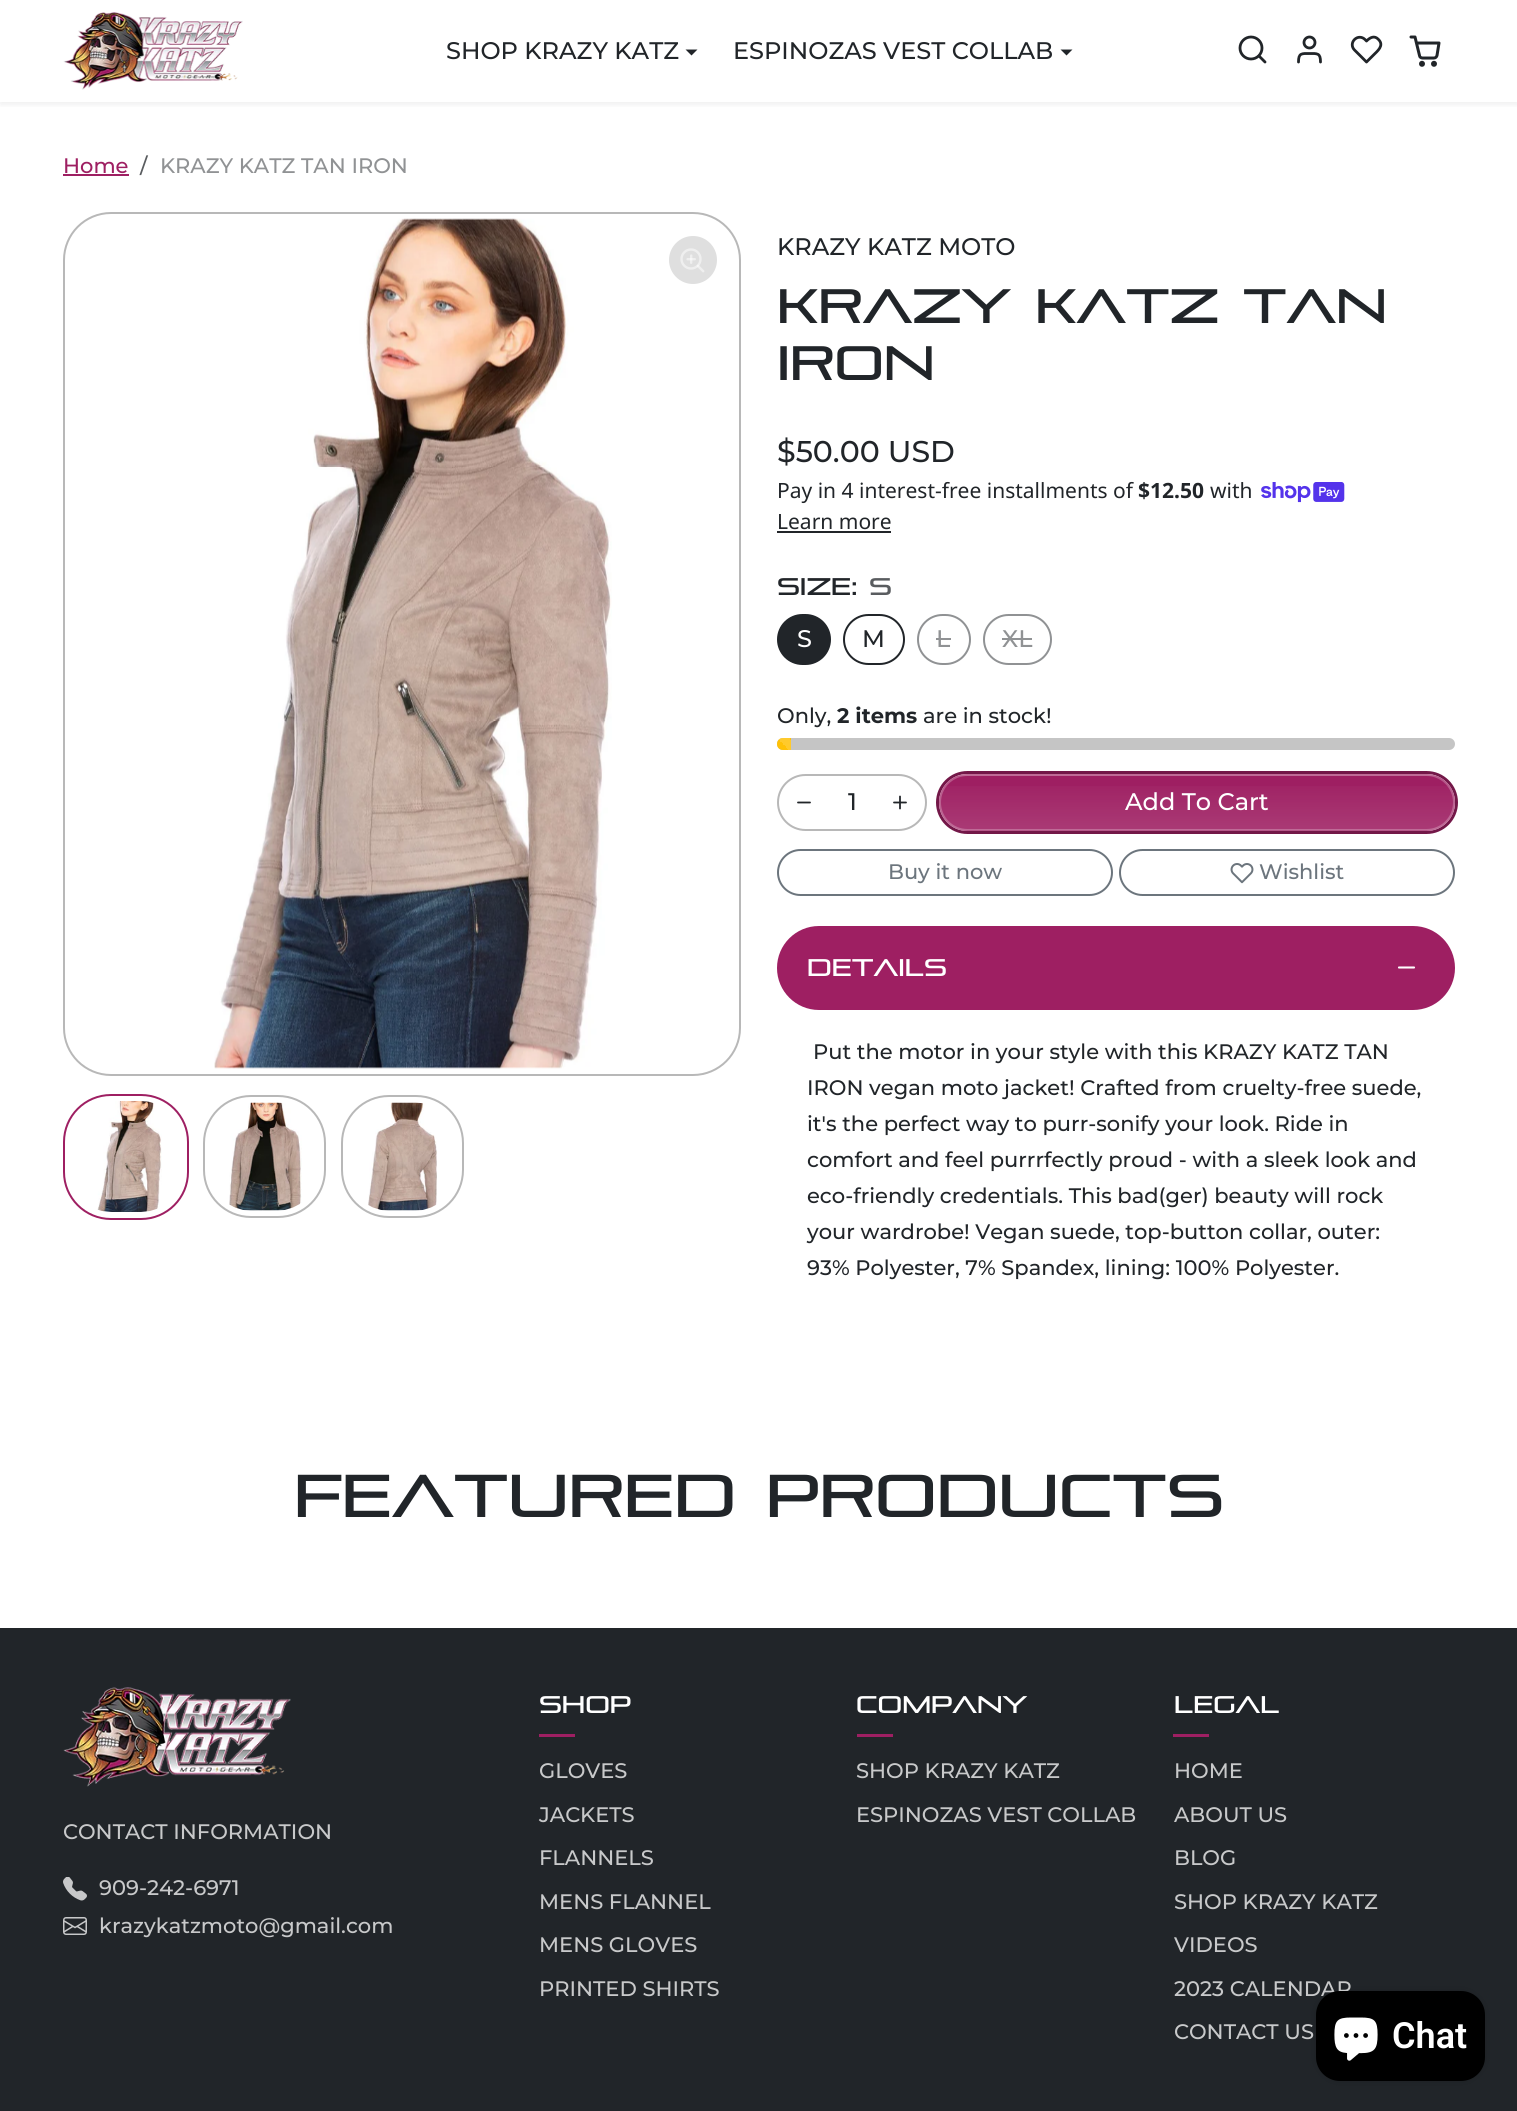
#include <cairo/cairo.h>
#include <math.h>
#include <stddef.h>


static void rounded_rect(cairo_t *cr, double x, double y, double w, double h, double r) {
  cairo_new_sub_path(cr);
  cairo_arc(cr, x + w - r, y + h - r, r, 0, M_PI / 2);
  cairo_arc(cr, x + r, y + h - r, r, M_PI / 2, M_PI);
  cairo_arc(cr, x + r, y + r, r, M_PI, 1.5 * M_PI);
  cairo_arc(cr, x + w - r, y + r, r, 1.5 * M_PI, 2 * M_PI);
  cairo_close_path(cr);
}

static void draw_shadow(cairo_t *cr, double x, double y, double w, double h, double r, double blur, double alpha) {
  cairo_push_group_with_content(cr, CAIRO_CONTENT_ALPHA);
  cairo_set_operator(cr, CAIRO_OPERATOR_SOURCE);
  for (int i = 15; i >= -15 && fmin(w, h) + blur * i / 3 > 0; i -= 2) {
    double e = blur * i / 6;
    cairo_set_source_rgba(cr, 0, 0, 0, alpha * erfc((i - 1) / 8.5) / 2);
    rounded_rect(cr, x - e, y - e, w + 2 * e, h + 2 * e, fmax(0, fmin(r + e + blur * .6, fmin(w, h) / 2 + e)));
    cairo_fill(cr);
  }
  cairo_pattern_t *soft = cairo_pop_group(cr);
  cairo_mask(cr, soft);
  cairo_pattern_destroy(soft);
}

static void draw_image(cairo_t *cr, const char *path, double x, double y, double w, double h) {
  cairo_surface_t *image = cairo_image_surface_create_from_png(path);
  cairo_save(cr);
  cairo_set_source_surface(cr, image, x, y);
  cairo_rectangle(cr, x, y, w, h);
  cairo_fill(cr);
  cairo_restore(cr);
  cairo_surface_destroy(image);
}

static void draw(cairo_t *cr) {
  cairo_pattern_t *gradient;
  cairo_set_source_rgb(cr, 1, 1, 1);
  cairo_paint(cr);
  cairo_save(cr);
  cairo_rectangle(cr, 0, 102, 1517, 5);
  cairo_clip(cr);
  cairo_set_source_rgb(cr, 33 / 255.0, 37 / 255.0, 41 / 255.0);
  draw_shadow(cr, 0, 3, 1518, 102, 0, 3, 0.07);
  cairo_restore(cr);
  draw_image(cr, "images/1.png", 63, 12, 180, 78);
  cairo_set_source_rgb(cr, 33 / 255.0, 37 / 255.0, 41 / 255.0);
  cairo_new_path(cr);
  cairo_move_to(cr, 685.5, 49.5);
  cairo_line_to(cr, 697.5, 49.5);
  cairo_line_to(cr, 691.5, 55.5);
  cairo_close_path(cr);
  cairo_fill(cr);
  cairo_new_path(cr);
  cairo_move_to(cr, 1060.5, 49.5);
  cairo_line_to(cr, 1072.5, 49.5);
  cairo_line_to(cr, 1066.5, 55.5);
  cairo_close_path(cr);
  cairo_fill(cr);
  cairo_arc(cr, 1251, 48, 11, 0, 2 * M_PI);
  cairo_set_line_width(cr, 2.8);
  cairo_stroke(cr);
  cairo_new_path(cr);
  cairo_move_to(cr, 1265, 62);
  cairo_line_to(cr, 1259, 56);
  cairo_set_line_cap(cr, CAIRO_LINE_CAP_ROUND);
  cairo_set_line_join(cr, CAIRO_LINE_JOIN_ROUND);
  cairo_stroke(cr);
  cairo_new_path(cr);
  cairo_move_to(cr, 1320.5, 62);
  cairo_curve_to(cr, 1320.5, 53, 1317.5, 53.5, 1309.5, 53.5);
  cairo_curve_to(cr, 1301.5, 53.5, 1298.5, 53, 1298.5, 62);
  cairo_stroke(cr);
  cairo_arc(cr, 1309.5, 42.5, 5.5, 0, 2 * M_PI);
  cairo_set_line_cap(cr, CAIRO_LINE_CAP_BUTT);
  cairo_set_line_join(cr, CAIRO_LINE_JOIN_MITER);
  cairo_stroke(cr);
  cairo_new_path(cr);
  cairo_move_to(cr, 1378.5, 39.5);
  cairo_curve_to(cr, 1374.5, 35, 1370, 37.5, 1366.5, 41);
  cairo_line_to(cr, 1365, 39.5);
  cairo_curve_to(cr, 1362, 36.5, 1357.5, 36.5, 1354.5, 39.5);
  cairo_curve_to(cr, 1351.5, 42.5, 1351.5, 47, 1354.5, 50);
  cairo_line_to(cr, 1366.5, 62);
  cairo_line_to(cr, 1373.5, 55);
  cairo_curve_to(cr, 1377.5, 51, 1384.5, 45.5, 1378.5, 39.5);
  cairo_close_path(cr);
  cairo_set_line_cap(cr, CAIRO_LINE_CAP_ROUND);
  cairo_set_line_join(cr, CAIRO_LINE_JOIN_ROUND);
  cairo_stroke(cr);
  cairo_arc(cr, 1422, 63.8, 1.5, 0, 2 * M_PI);
  cairo_set_line_width(cr, 3);
  cairo_set_line_cap(cr, CAIRO_LINE_CAP_BUTT);
  cairo_set_line_join(cr, CAIRO_LINE_JOIN_MITER);
  cairo_stroke(cr);
  cairo_arc(cr, 1434, 63.8, 1.5, 0, 2 * M_PI);
  cairo_stroke(cr);
  cairo_new_path(cr);
  cairo_move_to(cr, 1411, 37);
  cairo_line_to(cr, 1415, 37);
  cairo_line_to(cr, 1419.5, 55.5);
  cairo_curve_to(cr, 1419.5, 57, 1421, 58, 1422.5, 58);
  cairo_line_to(cr, 1434, 58);
  cairo_curve_to(cr, 1435.5, 58, 1436.5, 57, 1437, 55.5);
  cairo_line_to(cr, 1439, 43);
  cairo_line_to(cr, 1417.5, 43);
  cairo_set_line_cap(cr, CAIRO_LINE_CAP_ROUND);
  cairo_set_line_join(cr, CAIRO_LINE_JOIN_ROUND);
  cairo_stroke(cr);
  cairo_set_source_rgb(cr, 158 / 255.0, 31 / 255.0, 98 / 255.0);
  cairo_rectangle(cr, 63, 174, 66, 2);
  cairo_fill(cr);
  rounded_rect(cr, 64, 213, 676, 862, 47);
  cairo_set_source_rgb(cr, 184 / 255.0, 184 / 255.0, 184 / 255.0);
  cairo_set_line_width(cr, 2);
  cairo_set_line_cap(cr, CAIRO_LINE_CAP_BUTT);
  cairo_set_line_join(cr, CAIRO_LINE_JOIN_MITER);
  cairo_stroke(cr);
  draw_image(cr, "images/2.png", 214, 218, 398, 851);
  cairo_set_source_rgb(cr, 223 / 255.0, 223 / 255.0, 223 / 255.0);
  cairo_arc(cr, 693, 260, 24, 0, 2 * M_PI);
  cairo_fill(cr);
  draw_image(cr, "images/3.png", 680, 248, 25, 25);
  rounded_rect(cr, 64, 1095, 124, 124, 47);
  cairo_set_source_rgb(cr, 158 / 255.0, 31 / 255.0, 98 / 255.0);
  cairo_stroke(cr);
  draw_image(cr, "images/4.png", 97, 1101, 65, 111);
  rounded_rect(cr, 204, 1096, 121, 121, 47);
  cairo_set_source_rgb(cr, 184 / 255.0, 184 / 255.0, 184 / 255.0);
  cairo_stroke(cr);
  draw_image(cr, "images/5.png", 229, 1102, 73, 109);
  rounded_rect(cr, 342, 1096, 121, 121, 47);
  cairo_stroke(cr);
  draw_image(cr, "images/6.png", 368, 1102, 69, 109);
  draw_image(cr, "images/7.png", 1261, 482, 84, 21);
  cairo_set_source_rgb(cr, 33 / 255.0, 37 / 255.0, 41 / 255.0);
  cairo_rectangle(cr, 777, 531, 114, 2);
  cairo_fill(cr);
  rounded_rect(cr, 778, 615, 52, 49, 24.5);
  cairo_fill_preserve(cr);
  cairo_stroke(cr);
  rounded_rect(cr, 844, 615, 60, 49, 24.5);
  cairo_stroke(cr);
  rounded_rect(cr, 918, 615, 52, 49, 24.5);
  cairo_set_source_rgb(cr, 144 / 255.0, 146 / 255.0, 148 / 255.0);
  cairo_stroke(cr);
  cairo_rectangle(cr, 936, 638, 15, 2);
  cairo_fill(cr);
  rounded_rect(cr, 984, 615, 67, 49, 24.5);
  cairo_stroke(cr);
  cairo_rectangle(cr, 1002, 638, 30, 2);
  cairo_fill(cr);
  cairo_set_source_rgb(cr, 197 / 255.0, 197 / 255.0, 197 / 255.0);
  rounded_rect(cr, 777, 738, 678, 12, 6);
  cairo_fill(cr);
  cairo_set_source_rgb(cr, 1, 193 / 255.0, 7 / 255.0);
  cairo_new_path(cr);
  cairo_move_to(cr, 783, 738);
  cairo_line_to(cr, 791, 738);
  cairo_line_to(cr, 791, 750);
  cairo_line_to(cr, 783, 750);
  cairo_curve_to(cr, 779.5, 750, 777, 747.5, 777, 744);
  cairo_curve_to(cr, 777, 740.5, 779.5, 738, 783, 738);
  cairo_close_path(cr);
  cairo_fill(cr);
  gradient = cairo_pattern_create_linear(777, 762, 801, 738);
  cairo_pattern_add_color_stop_rgba(gradient, 0.25, 1, 1, 1, 0.15);
  cairo_pattern_add_color_stop_rgba(gradient, 0.25, 1, 1, 1, 0);
  cairo_pattern_add_color_stop_rgba(gradient, 0.5, 1, 1, 1, 0);
  cairo_pattern_add_color_stop_rgba(gradient, 0.5, 1, 1, 1, 0.15);
  cairo_pattern_add_color_stop_rgba(gradient, 0.75, 1, 1, 1, 0.15);
  cairo_pattern_add_color_stop_rgba(gradient, 0.75, 1, 1, 1, 0);
  cairo_pattern_add_color_stop_rgba(gradient, 1, 0, 0, 0, 0);
  cairo_set_source(cr, gradient);
  cairo_pattern_destroy(gradient);
  cairo_new_path(cr);
  cairo_move_to(cr, 783, 738);
  cairo_line_to(cr, 791, 738);
  cairo_line_to(cr, 791, 750);
  cairo_line_to(cr, 783, 750);
  cairo_curve_to(cr, 779.5, 750, 777, 747.5, 777, 744);
  cairo_curve_to(cr, 777, 740.5, 779.5, 738, 783, 738);
  cairo_close_path(cr);
  cairo_fill(cr);
  rounded_rect(cr, 778, 775, 148, 55, 27.5);
  cairo_set_source_rgb(cr, 184 / 255.0, 184 / 255.0, 184 / 255.0);
  cairo_stroke(cr);
  cairo_new_path(cr);
  cairo_move_to(cr, 798, 802.5);
  cairo_line_to(cr, 810, 802.5);
  cairo_set_source_rgb(cr, 33 / 255.0, 37 / 255.0, 41 / 255.0);
  cairo_set_line_width(cr, 1.8);
  cairo_set_line_cap(cr, CAIRO_LINE_CAP_ROUND);
  cairo_set_line_join(cr, CAIRO_LINE_JOIN_ROUND);
  cairo_stroke(cr);
  cairo_new_path(cr);
  cairo_move_to(cr, 900, 796.5);
  cairo_line_to(cr, 900, 808.5);
  cairo_move_to(cr, 894, 802.5);
  cairo_line_to(cr, 906, 802.5);
  cairo_stroke(cr);
  rounded_rect(cr, 937.5, 772.5, 519, 60, 30);
  cairo_set_source_rgb(cr, 115 / 255.0, 23 / 255.0, 72 / 255.0);
  cairo_set_line_width(cr, 3);
  cairo_set_line_cap(cr, CAIRO_LINE_CAP_BUTT);
  cairo_set_line_join(cr, CAIRO_LINE_JOIN_MITER);
  cairo_stroke(cr);
  cairo_set_source_rgb(cr, 158 / 255.0, 31 / 255.0, 98 / 255.0);
  rounded_rect(cr, 939, 774, 516, 57, 28.5);
  cairo_fill(cr);
  cairo_save(cr);
  rounded_rect(cr, 939, 774, 516, 57, 28.5);
  cairo_clip(cr);
  gradient = cairo_pattern_create_linear(1197, 722, 1197, 776);
  cairo_pattern_add_color_stop_rgba(gradient, 0, 1, 1, 1, 0);
  cairo_pattern_add_color_stop_rgba(gradient, 1, 1, 1, 1, 0.12);
  cairo_set_source(cr, gradient);
  cairo_pattern_destroy(gradient);
  cairo_rectangle(cr, 958, 774, 478, 2);
  cairo_fill(cr);
  gradient = cairo_pattern_create_linear(1197, 776, 1197, 830);
  cairo_pattern_add_color_stop_rgba(gradient, 0, 1, 1, 1, 0);
  cairo_pattern_add_color_stop_rgba(gradient, 1, 1, 1, 1, 0.12);
  cairo_set_source(cr, gradient);
  cairo_pattern_destroy(gradient);
  cairo_rectangle(cr, 939, 786, 516, 44);
  cairo_fill(cr);
  cairo_restore(cr);
  rounded_rect(cr, 940, 775, 514, 55, 27.5);
  cairo_set_source_rgba(cr, 1, 1, 1, 0.25);
  cairo_set_line_width(cr, 2);
  cairo_stroke(cr);
  rounded_rect(cr, 778, 850, 334, 45, 22.5);
  cairo_set_source_rgb(cr, 108 / 255.0, 117 / 255.0, 125 / 255.0);
  cairo_stroke(cr);
  rounded_rect(cr, 1120, 850, 334, 45, 22.5);
  cairo_stroke(cr);
  draw_image(cr, "images/8.png", 1230, 863, 24, 21);
  cairo_set_source_rgb(cr, 158 / 255.0, 31 / 255.0, 98 / 255.0);
  rounded_rect(cr, 777, 926, 678, 84, 42);
  cairo_fill(cr);
  cairo_new_path(cr);
  cairo_move_to(cr, 1414, 967.5);
  cairo_line_to(cr, 1399, 967.5);
  cairo_set_source_rgb(cr, 1, 1, 1);
  cairo_set_line_width(cr, 2.1);
  cairo_set_line_cap(cr, CAIRO_LINE_CAP_ROUND);
  cairo_set_line_join(cr, CAIRO_LINE_JOIN_ROUND);
  cairo_stroke(cr);
  cairo_set_source_rgb(cr, 33 / 255.0, 37 / 255.0, 41 / 255.0);
  cairo_rectangle(cr, 0, 1628, 1517, 483);
  cairo_fill(cr);
  draw_image(cr, "images/9.png", 63, 1687, 228, 100);
  draw_image(cr, "images/10.png", 63, 1877, 24, 24);
  draw_image(cr, "images/11.png", 63, 1917, 24, 18);
  cairo_set_source_rgb(cr, 158 / 255.0, 31 / 255.0, 98 / 255.0);
  cairo_rectangle(cr, 539, 1734, 36, 3);
  cairo_fill(cr);
  cairo_rectangle(cr, 857, 1734, 36, 3);
  cairo_fill(cr);
  cairo_rectangle(cr, 1173, 1734, 36, 3);
  cairo_fill(cr);
  cairo_set_source_rgb(cr, 0, 0, 0);
  draw_shadow(cr, 1316, 1991, 169, 90, 24, 4, 0.15);
  cairo_select_font_face(cr, "Montserrat Medium", CAIRO_FONT_SLANT_NORMAL, CAIRO_FONT_WEIGHT_NORMAL);
  cairo_set_font_size(cr, 24);
  cairo_set_source_rgb(cr, 33 / 255.0, 37 / 255.0, 41 / 255.0);
  cairo_move_to(cr, 446, 59);
  cairo_show_text(cr, "SHOP KRAZY KATZ");
  cairo_move_to(cr, 733, 59);
  cairo_show_text(cr, "ESPINOZAS VEST COLLAB");
  cairo_set_font_size(cr, 21);
  cairo_set_source_rgb(cr, 158 / 255.0, 31 / 255.0, 98 / 255.0);
  cairo_move_to(cr, 63, 173);
  cairo_show_text(cr, "Home");
  cairo_set_source_rgb(cr, 89 / 255.0, 92 / 255.0, 95 / 255.0);
  cairo_move_to(cr, 140, 173);
  cairo_show_text(cr, "/");
  cairo_set_source_rgb(cr, 144 / 255.0, 146 / 255.0, 148 / 255.0);
  cairo_move_to(cr, 160, 173);
  cairo_show_text(cr, "KRAZY KATZ TAN IRON");
  cairo_set_font_size(cr, 24);
  cairo_set_source_rgb(cr, 33 / 255.0, 37 / 255.0, 41 / 255.0);
  cairo_move_to(cr, 777, 255);
  cairo_show_text(cr, "KRAZY KATZ MOTO");
  cairo_select_font_face(cr, "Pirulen", CAIRO_FONT_SLANT_NORMAL, CAIRO_FONT_WEIGHT_NORMAL);
  cairo_set_font_size(cr, 48);
  cairo_move_to(cr, 777, 323);
  cairo_show_text(cr, "KRAZY KATZ TAN");
  cairo_move_to(cr, 777, 380);
  cairo_show_text(cr, "IRON");
  cairo_select_font_face(cr, "Montserrat Medium", CAIRO_FONT_SLANT_NORMAL, CAIRO_FONT_WEIGHT_NORMAL);
  cairo_set_font_size(cr, 30);
  cairo_move_to(cr, 777, 462);
  cairo_show_text(cr, "$50.00 USD");
  cairo_select_font_face(cr, "Noto Sans", CAIRO_FONT_SLANT_NORMAL, CAIRO_FONT_WEIGHT_NORMAL);
  cairo_set_font_size(cr, 21);
  cairo_move_to(cr, 777, 498);
  cairo_show_text(cr, "Pay in 4 interest-free installments of");
  cairo_select_font_face(cr, "Noto Sans", CAIRO_FONT_SLANT_NORMAL, CAIRO_FONT_WEIGHT_BOLD);
  cairo_move_to(cr, 1138, 498);
  cairo_show_text(cr, "$12.50");
  cairo_select_font_face(cr, "Noto Sans", CAIRO_FONT_SLANT_NORMAL, CAIRO_FONT_WEIGHT_NORMAL);
  cairo_move_to(cr, 1210, 498);
  cairo_show_text(cr, "with");
  cairo_move_to(cr, 777, 529);
  cairo_show_text(cr, "Learn more");
  cairo_select_font_face(cr, "Pirulen", CAIRO_FONT_SLANT_NORMAL, CAIRO_FONT_WEIGHT_NORMAL);
  cairo_set_font_size(cr, 24);
  cairo_move_to(cr, 777, 595);
  cairo_show_text(cr, "Size:");
  cairo_set_source_rgb(cr, 89 / 255.0, 92 / 255.0, 95 / 255.0);
  cairo_move_to(cr, 869, 595);
  cairo_show_text(cr, "S");
  cairo_select_font_face(cr, "Montserrat Medium", CAIRO_FONT_SLANT_NORMAL, CAIRO_FONT_WEIGHT_NORMAL);
  cairo_set_source_rgb(cr, 1, 1, 1);
  cairo_move_to(cr, 797, 647);
  cairo_show_text(cr, "S");
  cairo_set_source_rgb(cr, 33 / 255.0, 37 / 255.0, 41 / 255.0);
  cairo_move_to(cr, 862, 647);
  cairo_show_text(cr, "M");
  cairo_set_source_rgb(cr, 144 / 255.0, 146 / 255.0, 148 / 255.0);
  cairo_move_to(cr, 936, 647);
  cairo_show_text(cr, "L");
  cairo_move_to(cr, 1002, 647);
  cairo_show_text(cr, "XL");
  cairo_set_font_size(cr, 21);
  cairo_set_source_rgb(cr, 33 / 255.0, 37 / 255.0, 41 / 255.0);
  cairo_move_to(cr, 777, 723);
  cairo_show_text(cr, "Only,");
  cairo_select_font_face(cr, "Montserrat", CAIRO_FONT_SLANT_NORMAL, CAIRO_FONT_WEIGHT_BOLD);
  cairo_move_to(cr, 837, 723);
  cairo_show_text(cr, "2 items");
  cairo_select_font_face(cr, "Montserrat Medium", CAIRO_FONT_SLANT_NORMAL, CAIRO_FONT_WEIGHT_NORMAL);
  cairo_move_to(cr, 923, 723);
  cairo_show_text(cr, "are in stock!");
  cairo_set_font_size(cr, 24);
  cairo_move_to(cr, 848, 810);
  cairo_show_text(cr, "1");
  cairo_set_source_rgb(cr, 1, 1, 1);
  cairo_move_to(cr, 1125, 810);
  cairo_show_text(cr, "Add To Cart");
  cairo_set_font_size(cr, 21);
  cairo_set_source_rgb(cr, 108 / 255.0, 117 / 255.0, 125 / 255.0);
  cairo_move_to(cr, 888, 879);
  cairo_show_text(cr, "Buy it now");
  cairo_move_to(cr, 1259, 879);
  cairo_show_text(cr, "Wishlist");
  cairo_select_font_face(cr, "Pirulen", CAIRO_FONT_SLANT_NORMAL, CAIRO_FONT_WEIGHT_NORMAL);
  cairo_set_font_size(cr, 24);
  cairo_set_source_rgb(cr, 1, 1, 1);
  cairo_move_to(cr, 807, 976);
  cairo_show_text(cr, "Details");
  cairo_select_font_face(cr, "Montserrat Medium", CAIRO_FONT_SLANT_NORMAL, CAIRO_FONT_WEIGHT_NORMAL);
  cairo_set_font_size(cr, 21);
  cairo_set_source_rgb(cr, 33 / 255.0, 37 / 255.0, 41 / 255.0);
  cairo_move_to(cr, 813, 1059);
  cairo_show_text(cr, "Put the motor in your style with this KRAZY KATZ TAN");
  cairo_move_to(cr, 807, 1095);
  cairo_show_text(cr, "IRON vegan moto jacket! Crafted from cruelty-free suede,");
  cairo_move_to(cr, 807, 1131);
  cairo_show_text(cr, "it's the perfect way to purr-sonify your look. Ride in");
  cairo_move_to(cr, 807, 1167);
  cairo_show_text(cr, "comfort and feel purrrfectly proud - with a sleek look and");
  cairo_move_to(cr, 807, 1203);
  cairo_show_text(cr, "eco-friendly credentials. This bad(ger) beauty will rock");
  cairo_move_to(cr, 807, 1239);
  cairo_show_text(cr, "your wardrobe! Vegan suede, top-button collar, outer:");
  cairo_move_to(cr, 807, 1275);
  cairo_show_text(cr, "93% Polyester, 7% Spandex, lining: 100% Polyester.");
  cairo_select_font_face(cr, "Pirulen", CAIRO_FONT_SLANT_NORMAL, CAIRO_FONT_WEIGHT_NORMAL);
  cairo_set_font_size(cr, 60);
  cairo_move_to(cr, 294, 1517);
  cairo_show_text(cr, "Featured Products");
  cairo_select_font_face(cr, "Montserrat Medium", CAIRO_FONT_SLANT_NORMAL, CAIRO_FONT_WEIGHT_NORMAL);
  cairo_set_font_size(cr, 21);
  cairo_set_source_rgb(cr, 200 / 255.0, 201 / 255.0, 202 / 255.0);
  cairo_move_to(cr, 63, 1839);
  cairo_show_text(cr, "CONTACT INFORMATION");
  cairo_move_to(cr, 99, 1895);
  cairo_show_text(cr, "909-242-6971");
  cairo_move_to(cr, 99, 1933);
  cairo_show_text(cr, "krazykatzmoto@gmail.com");
  cairo_select_font_face(cr, "Pirulen", CAIRO_FONT_SLANT_NORMAL, CAIRO_FONT_WEIGHT_NORMAL);
  cairo_set_font_size(cr, 24);
  cairo_set_source_rgb(cr, 1, 1, 1);
  cairo_move_to(cr, 539, 1713);
  cairo_show_text(cr, "SHOP");
  cairo_select_font_face(cr, "Montserrat Medium", CAIRO_FONT_SLANT_NORMAL, CAIRO_FONT_WEIGHT_NORMAL);
  cairo_set_font_size(cr, 21);
  cairo_set_source_rgb(cr, 200 / 255.0, 201 / 255.0, 202 / 255.0);
  cairo_move_to(cr, 539, 1778);
  cairo_show_text(cr, "GLOVES");
  cairo_move_to(cr, 539, 1822);
  cairo_show_text(cr, "JACKETS");
  cairo_move_to(cr, 539, 1865);
  cairo_show_text(cr, "FLANNELS");
  cairo_move_to(cr, 539, 1909);
  cairo_show_text(cr, "MENS FLANNEL");
  cairo_move_to(cr, 539, 1952);
  cairo_show_text(cr, "MENS GLOVES");
  cairo_move_to(cr, 539, 1996);
  cairo_show_text(cr, "PRINTED SHIRTS");
  cairo_select_font_face(cr, "Pirulen", CAIRO_FONT_SLANT_NORMAL, CAIRO_FONT_WEIGHT_NORMAL);
  cairo_set_font_size(cr, 24);
  cairo_set_source_rgb(cr, 1, 1, 1);
  cairo_move_to(cr, 856, 1713);
  cairo_show_text(cr, "COMPANY");
  cairo_select_font_face(cr, "Montserrat Medium", CAIRO_FONT_SLANT_NORMAL, CAIRO_FONT_WEIGHT_NORMAL);
  cairo_set_font_size(cr, 21);
  cairo_set_source_rgb(cr, 200 / 255.0, 201 / 255.0, 202 / 255.0);
  cairo_move_to(cr, 856, 1778);
  cairo_show_text(cr, "SHOP KRAZY KATZ");
  cairo_move_to(cr, 856, 1822);
  cairo_show_text(cr, "ESPINOZAS VEST COLLAB");
  cairo_select_font_face(cr, "Pirulen", CAIRO_FONT_SLANT_NORMAL, CAIRO_FONT_WEIGHT_NORMAL);
  cairo_set_font_size(cr, 24);
  cairo_set_source_rgb(cr, 1, 1, 1);
  cairo_move_to(cr, 1174, 1713);
  cairo_show_text(cr, "LEGAL");
  cairo_select_font_face(cr, "Montserrat Medium", CAIRO_FONT_SLANT_NORMAL, CAIRO_FONT_WEIGHT_NORMAL);
  cairo_set_font_size(cr, 21);
  cairo_set_source_rgb(cr, 200 / 255.0, 201 / 255.0, 202 / 255.0);
  cairo_move_to(cr, 1174, 1778);
  cairo_show_text(cr, "HOME");
  cairo_move_to(cr, 1174, 1822);
  cairo_show_text(cr, "ABOUT US");
  cairo_move_to(cr, 1174, 1865);
  cairo_show_text(cr, "BLOG");
  cairo_move_to(cr, 1174, 1909);
  cairo_show_text(cr, "SHOP KRAZY KATZ");
  cairo_move_to(cr, 1174, 1952);
  cairo_show_text(cr, "VIDEOS");
  cairo_move_to(cr, 1174, 1996);
  cairo_show_text(cr, "2023 CALENDAR");
  cairo_move_to(cr, 1174, 2039);
  cairo_show_text(cr, "CONTACT US");
  cairo_set_source_rgb(cr, 0, 0, 0);
  rounded_rect(cr, 1316, 1991, 169, 90, 24);
  cairo_fill(cr);
  draw_image(cr, "images/12.png", 1334, 2017, 44, 44);
  cairo_select_font_face(cr, "Roboto SemiBold", CAIRO_FONT_SLANT_NORMAL, CAIRO_FONT_WEIGHT_NORMAL);
  cairo_set_font_size(cr, 36);
  cairo_set_source_rgb(cr, 1, 1, 1);
  cairo_move_to(cr, 1392, 2048);
  cairo_show_text(cr, "Chat");
}

int main(void) {
  cairo_surface_t *surface = cairo_image_surface_create(CAIRO_FORMAT_RGB24, 1517, 2111);
  cairo_t *cr = cairo_create(surface);
  cairo_font_options_t *options = cairo_font_options_create();
  cairo_font_options_set_hint_metrics(options, CAIRO_HINT_METRICS_OFF);
  cairo_font_options_set_hint_style(options, CAIRO_HINT_STYLE_NONE);
  cairo_set_font_options(cr, options);
  cairo_set_miter_limit(cr, 4);
  draw(cr);
  cairo_surface_write_to_png(surface, "out.png");
  cairo_font_options_destroy(options);
  cairo_destroy(cr);
  cairo_surface_destroy(surface);
  return 0;
}
